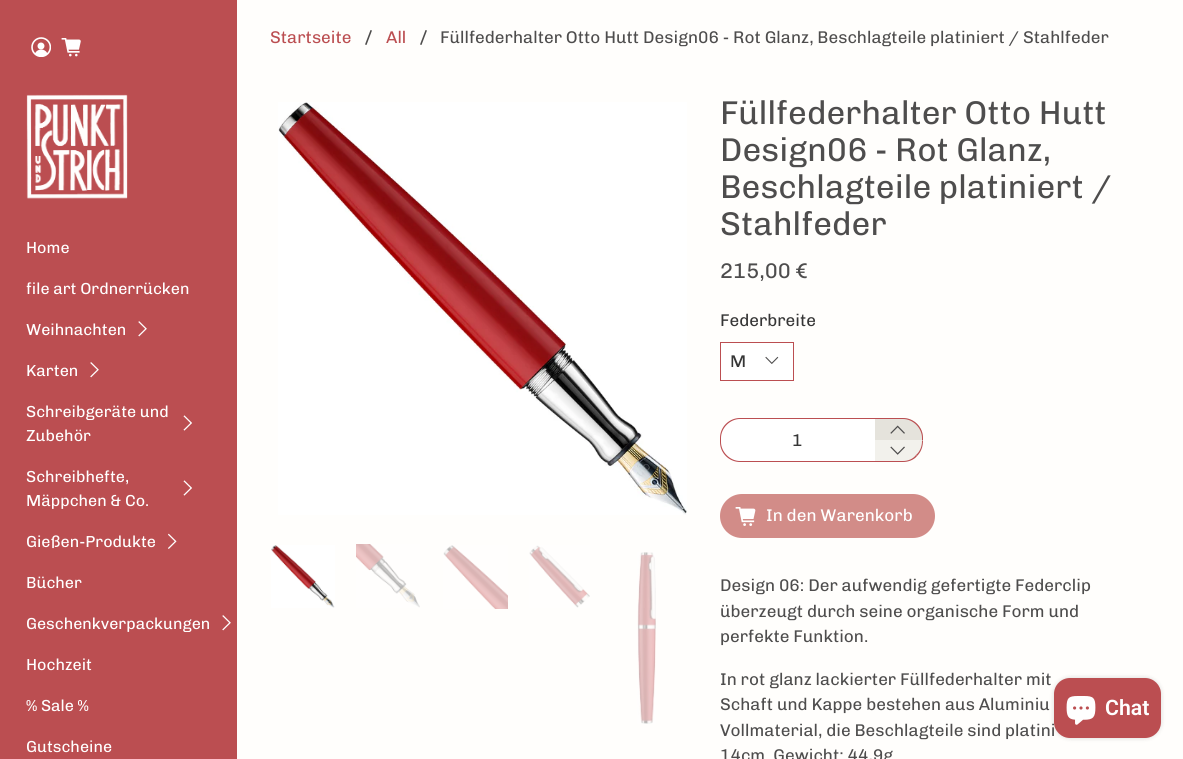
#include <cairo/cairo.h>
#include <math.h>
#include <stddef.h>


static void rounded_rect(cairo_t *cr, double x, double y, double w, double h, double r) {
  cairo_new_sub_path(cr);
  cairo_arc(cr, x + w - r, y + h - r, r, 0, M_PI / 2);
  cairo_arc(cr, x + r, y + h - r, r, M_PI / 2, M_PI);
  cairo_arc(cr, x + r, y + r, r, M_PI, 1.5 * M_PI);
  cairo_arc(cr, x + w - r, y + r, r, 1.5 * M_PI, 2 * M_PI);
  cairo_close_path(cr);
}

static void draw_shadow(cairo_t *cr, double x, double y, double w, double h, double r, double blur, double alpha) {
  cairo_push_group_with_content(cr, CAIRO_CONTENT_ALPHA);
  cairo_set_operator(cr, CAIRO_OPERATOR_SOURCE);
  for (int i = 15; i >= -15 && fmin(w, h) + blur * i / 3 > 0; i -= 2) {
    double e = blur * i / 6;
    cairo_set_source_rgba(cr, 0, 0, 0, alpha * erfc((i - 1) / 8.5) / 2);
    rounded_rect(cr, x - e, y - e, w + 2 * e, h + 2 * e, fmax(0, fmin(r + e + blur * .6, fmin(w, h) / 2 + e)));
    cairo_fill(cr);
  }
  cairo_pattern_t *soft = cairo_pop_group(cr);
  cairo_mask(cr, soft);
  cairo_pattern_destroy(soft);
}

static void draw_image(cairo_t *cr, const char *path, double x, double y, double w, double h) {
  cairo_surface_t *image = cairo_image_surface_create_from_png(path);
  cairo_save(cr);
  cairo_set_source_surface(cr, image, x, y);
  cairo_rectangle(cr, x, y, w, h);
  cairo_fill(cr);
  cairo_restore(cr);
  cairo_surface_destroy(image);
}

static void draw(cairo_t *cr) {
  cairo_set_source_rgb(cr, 1, 254 / 255.0, 252 / 255.0);
  cairo_paint(cr);
  cairo_set_source_rgb(cr, 187 / 255.0, 78 / 255.0, 81 / 255.0);
  cairo_rectangle(cr, 0, 0, 237, 759);
  cairo_fill(cr);
  draw_image(cr, "images/1.png", 31, 37, 20, 20);
  draw_image(cr, "images/2.png", 61, 38, 20, 19);
  draw_image(cr, "images/3.png", 26, 94, 102, 105);
  draw_image(cr, "images/4.png", 138, 321, 9, 16);
  draw_image(cr, "images/5.png", 90, 362, 9, 16);
  draw_image(cr, "images/6.png", 183, 415, 9, 16);
  draw_image(cr, "images/6.png", 183, 480, 9, 16);
  draw_image(cr, "images/7.png", 168, 533, 9, 16);
  draw_image(cr, "images/8.png", 222, 615, 9, 16);
  draw_image(cr, "images/9.png", 278, 102, 409, 413);
  draw_image(cr, "images/10.png", 271, 545, 64, 63);
  draw_image(cr, "images/11.png", 356, 544, 64, 64);
  draw_image(cr, "images/12.png", 443, 545, 65, 64);
  draw_image(cr, "images/13.png", 529, 545, 61, 63);
  draw_image(cr, "images/14.png", 637, 552, 19, 172);
  cairo_set_source_rgb(cr, 1, 1, 1);
  cairo_rectangle(cr, 720.5, 342.5, 73, 38);
  cairo_fill_preserve(cr);
  cairo_set_source_rgb(cr, 187 / 255.0, 78 / 255.0, 81 / 255.0);
  cairo_set_line_width(cr, 1);
  cairo_stroke(cr);
  draw_image(cr, "images/15.png", 765, 356, 14, 8);
  cairo_set_source_rgb(cr, 1, 1, 1);
  cairo_new_path(cr);
  cairo_move_to(cr, 740, 418);
  cairo_line_to(cr, 875, 418);
  cairo_line_to(cr, 875, 462);
  cairo_line_to(cr, 740, 462);
  cairo_curve_to(cr, 729, 462, 720, 453, 720, 442);
  cairo_line_to(cr, 720, 438);
  cairo_curve_to(cr, 720, 427, 729, 418, 740, 418);
  cairo_close_path(cr);
  cairo_fill(cr);
  cairo_set_source_rgb(cr, 187 / 255.0, 78 / 255.0, 81 / 255.0);
  cairo_set_fill_rule(cr, CAIRO_FILL_RULE_EVEN_ODD);
  cairo_new_path(cr);
  cairo_move_to(cr, 740, 418);
  cairo_line_to(cr, 875, 418);
  cairo_line_to(cr, 875, 462);
  cairo_line_to(cr, 740, 462);
  cairo_curve_to(cr, 729, 462, 720, 453, 720, 442);
  cairo_line_to(cr, 720, 438);
  cairo_curve_to(cr, 720, 427, 729, 418, 740, 418);
  cairo_close_path(cr);
  cairo_move_to(cr, 740, 419);
  cairo_line_to(cr, 875, 419);
  cairo_line_to(cr, 875, 461);
  cairo_line_to(cr, 740, 461);
  cairo_curve_to(cr, 730, 461, 721, 452, 721, 442);
  cairo_line_to(cr, 721, 438);
  cairo_curve_to(cr, 721, 428, 730, 419, 740, 419);
  cairo_close_path(cr);
  cairo_fill(cr);
  cairo_set_source_rgb(cr, 229 / 255.0, 227 / 255.0, 220 / 255.0);
  cairo_new_path(cr);
  cairo_move_to(cr, 875, 418);
  cairo_line_to(cr, 903, 418);
  cairo_curve_to(cr, 914, 418, 923, 427, 923, 438);
  cairo_line_to(cr, 923, 440);
  cairo_line_to(cr, 875, 440);
  cairo_close_path(cr);
  cairo_fill(cr);
  cairo_set_source_rgb(cr, 187 / 255.0, 78 / 255.0, 81 / 255.0);
  cairo_new_path(cr);
  cairo_move_to(cr, 875, 418);
  cairo_line_to(cr, 903, 418);
  cairo_curve_to(cr, 914, 418, 923, 427, 923, 438);
  cairo_line_to(cr, 923, 440);
  cairo_line_to(cr, 875, 440);
  cairo_close_path(cr);
  cairo_move_to(cr, 875, 419);
  cairo_line_to(cr, 903, 419);
  cairo_curve_to(cr, 913, 419, 922, 428, 922, 438);
  cairo_line_to(cr, 922, 440);
  cairo_line_to(cr, 875, 440);
  cairo_close_path(cr);
  cairo_fill(cr);
  draw_image(cr, "images/16.png", 890, 425, 15, 9);
  cairo_set_source_rgb(cr, 242 / 255.0, 241 / 255.0, 236 / 255.0);
  cairo_new_path(cr);
  cairo_move_to(cr, 875, 440);
  cairo_line_to(cr, 923, 440);
  cairo_line_to(cr, 923, 442);
  cairo_curve_to(cr, 923, 453, 914, 462, 903, 462);
  cairo_line_to(cr, 875, 462);
  cairo_close_path(cr);
  cairo_fill(cr);
  cairo_set_source_rgb(cr, 187 / 255.0, 78 / 255.0, 81 / 255.0);
  cairo_set_fill_rule(cr, CAIRO_FILL_RULE_WINDING);
  cairo_new_path(cr);
  cairo_move_to(cr, 923, 440);
  cairo_curve_to(cr, 923, 446, 921.5, 451.5, 917, 456);
  cairo_line_to(cr, 916, 455);
  cairo_curve_to(cr, 920, 451.5, 922, 446.5, 922, 441);
  cairo_close_path(cr);
  cairo_fill(cr);
  cairo_new_path(cr);
  cairo_move_to(cr, 875, 461);
  cairo_line_to(cr, 875, 462);
  cairo_line_to(cr, 903, 462);
  cairo_curve_to(cr, 908, 462, 914, 460, 917, 456);
  cairo_line_to(cr, 916, 455);
  cairo_curve_to(cr, 913, 459, 908, 461, 903, 461);
  cairo_close_path(cr);
  cairo_fill(cr);
  draw_image(cr, "images/17.png", 890, 446, 15, 9);
  cairo_set_source_rgb(cr, 210 / 255.0, 140 / 255.0, 136 / 255.0);
  rounded_rect(cr, 720, 494, 215, 44, 22);
  cairo_fill(cr);
  draw_image(cr, "images/18.png", 735, 507, 21, 19);
  cairo_set_source_rgb(cr, 0, 0, 0);
  draw_shadow(cr, 1054, 678, 107, 60, 16, 2.5, 0.15);
  cairo_set_source_rgb(cr, 187 / 255.0, 78 / 255.0, 81 / 255.0);
  rounded_rect(cr, 1054, 678, 107, 60, 16);
  cairo_fill(cr);
  draw_image(cr, "images/19.png", 1066, 696, 30, 29);
  cairo_select_font_face(cr, "Chivo", CAIRO_FONT_SLANT_NORMAL, CAIRO_FONT_WEIGHT_NORMAL);
  cairo_set_font_size(cr, 16);
  cairo_set_source_rgb(cr, 1, 1, 1);
  cairo_move_to(cr, 26, 253);
  cairo_show_text(cr, "Home");
  cairo_move_to(cr, 26, 294);
  cairo_show_text(cr, "file art Ordnerrücken");
  cairo_move_to(cr, 26, 335);
  cairo_show_text(cr, "Weihnachten");
  cairo_move_to(cr, 26, 376);
  cairo_show_text(cr, "Karten");
  cairo_move_to(cr, 26, 417);
  cairo_show_text(cr, "Schreibgeräte und");
  cairo_move_to(cr, 26, 441);
  cairo_show_text(cr, "Zubehör");
  cairo_move_to(cr, 26, 482);
  cairo_show_text(cr, "Schreibhefte,");
  cairo_move_to(cr, 26, 506);
  cairo_show_text(cr, "Mäppchen & Co.");
  cairo_move_to(cr, 26, 547);
  cairo_show_text(cr, "Gießen-Produkte");
  cairo_move_to(cr, 26, 588);
  cairo_show_text(cr, "Bücher");
  cairo_move_to(cr, 26, 629);
  cairo_show_text(cr, "Geschenkverpackungen");
  cairo_move_to(cr, 26, 670);
  cairo_show_text(cr, "Hochzeit");
  cairo_move_to(cr, 26, 711);
  cairo_show_text(cr, "% Sale %");
  cairo_move_to(cr, 26, 752);
  cairo_show_text(cr, "Gutscheine");
  cairo_set_font_size(cr, 17);
  cairo_set_source_rgb(cr, 187 / 255.0, 78 / 255.0, 81 / 255.0);
  cairo_move_to(cr, 270, 43);
  cairo_show_text(cr, "Startseite");
  cairo_move_to(cr, 386, 43);
  cairo_show_text(cr, "All");
  cairo_set_source_rgb(cr, 78 / 255.0, 77 / 255.0, 77 / 255.0);
  cairo_new_path(cr);
  cairo_move_to(cr, 365, 44.5);
  cairo_line_to(cr, 370.5, 30);
  cairo_line_to(cr, 372, 30.5);
  cairo_line_to(cr, 366.5, 45);
  cairo_close_path(cr);
  cairo_move_to(cr, 420, 44.5);
  cairo_line_to(cr, 425.5, 30);
  cairo_line_to(cr, 427, 30.5);
  cairo_line_to(cr, 421.5, 45);
  cairo_close_path(cr);
  cairo_fill(cr);
  cairo_move_to(cr, 440, 43);
  cairo_show_text(cr, "Füllfederhalter Otto Hutt Design06 - Rot Glanz, Beschlagteile platiniert / Stahlfeder");
  cairo_set_font_size(cr, 33);
  cairo_move_to(cr, 720, 124);
  cairo_show_text(cr, "Füllfederhalter Otto Hutt");
  cairo_move_to(cr, 720, 161);
  cairo_show_text(cr, "Design06 - Rot Glanz,");
  cairo_move_to(cr, 720, 198);
  cairo_show_text(cr, "Beschlagteile platiniert /");
  cairo_move_to(cr, 720, 235);
  cairo_show_text(cr, "Stahlfeder");
  cairo_set_font_size(cr, 21.25);
  cairo_move_to(cr, 720, 278);
  cairo_show_text(cr, "215,00 €");
  cairo_set_font_size(cr, 17);
  cairo_set_source_rgb(cr, 54 / 255.0, 54 / 255.0, 54 / 255.0);
  cairo_move_to(cr, 720, 326);
  cairo_show_text(cr, "Federbreite");
  cairo_move_to(cr, 730, 367);
  cairo_show_text(cr, "M");
  cairo_move_to(cr, 792, 446);
  cairo_show_text(cr, "1");
  cairo_set_source_rgb(cr, 1, 1, 1);
  cairo_move_to(cr, 766, 521);
  cairo_show_text(cr, "In den Warenkorb");
  cairo_set_source_rgb(cr, 78 / 255.0, 77 / 255.0, 77 / 255.0);
  cairo_move_to(cr, 720, 591);
  cairo_show_text(cr, "Design 06: Der aufwendig gefertigte Federclip");
  cairo_move_to(cr, 720, 617);
  cairo_show_text(cr, "überzeugt durch seine organische Form und");
  cairo_move_to(cr, 720, 642);
  cairo_show_text(cr, "perfekte Funktion.");
  cairo_move_to(cr, 720, 685);
  cairo_show_text(cr, "In rot glanz lackierter Füllfederhalter mit");
  cairo_move_to(cr, 720, 710);
  cairo_show_text(cr, "Schaft und Kappe bestehen aus Aluminiu");
  cairo_move_to(cr, 720, 736);
  cairo_show_text(cr, "Vollmaterial, die Beschlagteile sind platini");
  cairo_move_to(cr, 720, 761);
  cairo_show_text(cr, "14cm. Gewicht: 44,9g");
  cairo_select_font_face(cr, "Roboto SemiBold", CAIRO_FONT_SLANT_NORMAL, CAIRO_FONT_WEIGHT_NORMAL);
  cairo_set_font_size(cr, 21.25);
  cairo_set_source_rgb(cr, 1, 1, 1);
  cairo_move_to(cr, 1105, 715);
  cairo_show_text(cr, "Chat");
}

int main(void) {
  cairo_surface_t *surface = cairo_image_surface_create(CAIRO_FORMAT_RGB24, 1183, 759);
  cairo_t *cr = cairo_create(surface);
  cairo_font_options_t *options = cairo_font_options_create();
  cairo_font_options_set_hint_metrics(options, CAIRO_HINT_METRICS_OFF);
  cairo_font_options_set_hint_style(options, CAIRO_HINT_STYLE_NONE);
  cairo_set_font_options(cr, options);
  cairo_set_miter_limit(cr, 4);
  draw(cr);
  cairo_surface_write_to_png(surface, "out.png");
  cairo_font_options_destroy(options);
  cairo_destroy(cr);
  cairo_surface_destroy(surface);
  return 0;
}
